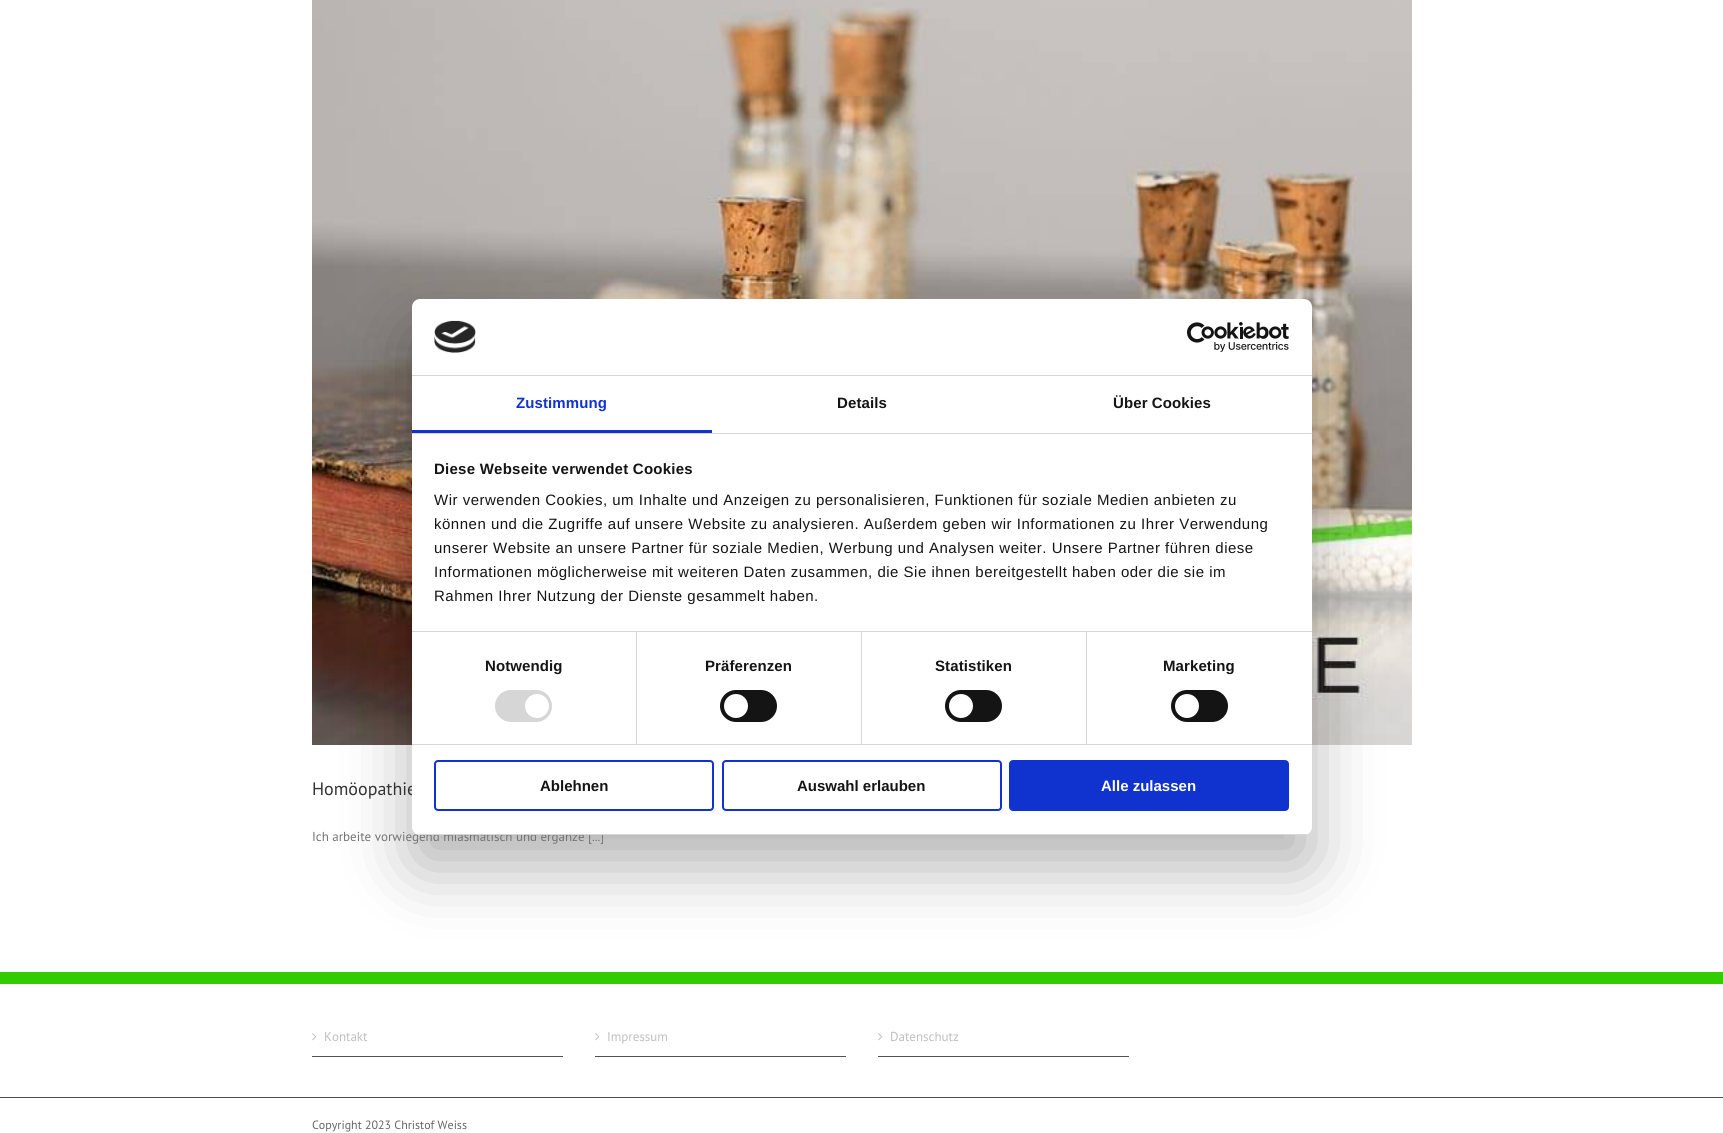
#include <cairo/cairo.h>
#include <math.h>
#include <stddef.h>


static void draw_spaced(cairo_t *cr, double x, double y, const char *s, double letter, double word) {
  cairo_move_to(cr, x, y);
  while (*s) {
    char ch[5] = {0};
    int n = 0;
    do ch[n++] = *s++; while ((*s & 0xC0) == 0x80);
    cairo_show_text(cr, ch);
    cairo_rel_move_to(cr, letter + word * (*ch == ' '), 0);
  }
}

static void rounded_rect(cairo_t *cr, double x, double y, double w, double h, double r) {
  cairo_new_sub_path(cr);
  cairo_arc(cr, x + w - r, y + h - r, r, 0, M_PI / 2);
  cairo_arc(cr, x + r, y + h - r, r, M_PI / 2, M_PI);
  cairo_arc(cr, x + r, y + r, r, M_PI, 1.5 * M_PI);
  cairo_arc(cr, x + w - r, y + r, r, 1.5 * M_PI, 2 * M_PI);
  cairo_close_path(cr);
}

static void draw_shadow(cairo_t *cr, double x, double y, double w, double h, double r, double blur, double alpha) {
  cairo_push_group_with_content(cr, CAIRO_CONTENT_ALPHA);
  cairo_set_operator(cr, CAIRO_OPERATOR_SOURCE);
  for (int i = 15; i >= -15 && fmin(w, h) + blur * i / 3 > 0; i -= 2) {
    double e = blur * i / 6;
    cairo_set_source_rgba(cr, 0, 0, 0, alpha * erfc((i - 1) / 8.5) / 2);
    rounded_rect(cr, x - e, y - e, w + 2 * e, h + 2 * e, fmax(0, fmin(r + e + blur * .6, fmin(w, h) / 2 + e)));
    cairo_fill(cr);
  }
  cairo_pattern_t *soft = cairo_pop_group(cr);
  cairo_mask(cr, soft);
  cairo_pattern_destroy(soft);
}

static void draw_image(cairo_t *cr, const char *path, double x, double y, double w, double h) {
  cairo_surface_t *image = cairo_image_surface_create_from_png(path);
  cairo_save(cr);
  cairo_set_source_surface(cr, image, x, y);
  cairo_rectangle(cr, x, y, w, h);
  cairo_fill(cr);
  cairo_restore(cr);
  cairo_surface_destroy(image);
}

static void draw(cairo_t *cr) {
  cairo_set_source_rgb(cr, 1, 1, 1);
  cairo_paint(cr);
  draw_image(cr, "images/3.png", 312, 0, 1100, 745);
  cairo_set_source_rgb(cr, 0, 0, 0);
  draw_shadow(cr, 412, 331, 900, 536, 8, 34, 0.3);
  cairo_set_source_rgb(cr, 51 / 255.0, 204 / 255.0, 0);
  cairo_rectangle(cr, 0, 972, 1723, 12);
  cairo_fill(cr);
  cairo_set_source_rgb(cr, 80 / 255.0, 81 / 255.0, 82 / 255.0);
  cairo_rectangle(cr, 312, 1056, 251, 1);
  cairo_fill(cr);
  draw_image(cr, "images/4.png", 312, 1033, 5, 8);
  cairo_rectangle(cr, 595, 1056, 251, 1);
  cairo_fill(cr);
  draw_image(cr, "images/4.png", 595, 1033, 5, 8);
  cairo_rectangle(cr, 878, 1056, 251, 1);
  cairo_fill(cr);
  draw_image(cr, "images/4.png", 878, 1033, 5, 8);
  cairo_set_source_rgb(cr, 75 / 255.0, 76 / 255.0, 77 / 255.0);
  cairo_rectangle(cr, 0, 1097, 1723, 1);
  cairo_fill(cr);
  cairo_select_font_face(cr, "PT Sans", CAIRO_FONT_SLANT_NORMAL, CAIRO_FONT_WEIGHT_NORMAL);
  cairo_set_font_size(cr, 18);
  cairo_set_source_rgb(cr, 51 / 255.0, 51 / 255.0, 51 / 255.0);
  cairo_move_to(cr, 312, 795);
  cairo_show_text(cr, "Homöopathie");
  cairo_set_font_size(cr, 13);
  cairo_set_source_rgb(cr, 116 / 255.0, 116 / 255.0, 116 / 255.0);
  cairo_move_to(cr, 312, 841);
  cairo_show_text(cr, "Ich arbeite vorwiegend miasmatisch und ergänze [...]");
  cairo_set_source_rgb(cr, 1, 1, 1);
  rounded_rect(cr, 412, 299, 900, 536, 8);
  cairo_fill(cr);
  cairo_set_source_rgb(cr, 16 / 255.0, 50 / 255.0, 207 / 255.0);
  rounded_rect(cr, 1010, 761, 278, 49, 3);
  cairo_fill_preserve(cr);
  cairo_stroke(cr);
  cairo_select_font_face(cr, "Liberation Sans", CAIRO_FONT_SLANT_NORMAL, CAIRO_FONT_WEIGHT_BOLD);
  cairo_set_font_size(cr, 15);
  cairo_set_source_rgb(cr, 1, 1, 1);
  cairo_move_to(cr, 1101, 791);
  cairo_show_text(cr, "Alle zulassen");
  rounded_rect(cr, 723, 761, 278, 49, 3);
  cairo_set_source_rgb(cr, 16 / 255.0, 50 / 255.0, 207 / 255.0);
  cairo_stroke(cr);
  cairo_set_source_rgb(cr, 20 / 255.0, 20 / 255.0, 20 / 255.0);
  cairo_move_to(cr, 797, 791);
  cairo_show_text(cr, "Auswahl erlauben");
  rounded_rect(cr, 435, 761, 278, 49, 3);
  cairo_set_source_rgb(cr, 16 / 255.0, 50 / 255.0, 207 / 255.0);
  cairo_stroke(cr);
  cairo_set_source_rgb(cr, 20 / 255.0, 20 / 255.0, 20 / 255.0);
  cairo_move_to(cr, 540, 791);
  cairo_show_text(cr, "Ablehnen");
  cairo_save(cr);
  rounded_rect(cr, 412, 299, 900, 536, 8);
  cairo_clip(cr);
  cairo_set_source_rgb(cr, 214 / 255.0, 214 / 255.0, 214 / 255.0);
  cairo_rectangle(cr, 412, 834, 900, 1);
  cairo_fill(cr);
  cairo_restore(cr);
  rounded_rect(cr, 1171, 690, 57, 32, 16);
  cairo_fill(cr);
  cairo_set_source_rgb(cr, 1, 1, 1);
  cairo_arc(cr, 1187, 706, 12, 0, 2 * M_PI);
  cairo_fill(cr);
  cairo_set_source_rgb(cr, 20 / 255.0, 20 / 255.0, 20 / 255.0);
  rounded_rect(cr, 945, 690, 57, 32, 16);
  cairo_fill(cr);
  cairo_set_source_rgb(cr, 1, 1, 1);
  cairo_arc(cr, 961, 706, 12, 0, 2 * M_PI);
  cairo_fill(cr);
  cairo_set_source_rgb(cr, 20 / 255.0, 20 / 255.0, 20 / 255.0);
  rounded_rect(cr, 720, 690, 57, 32, 16);
  cairo_fill(cr);
  cairo_set_source_rgb(cr, 1, 1, 1);
  cairo_arc(cr, 736, 706, 12, 0, 2 * M_PI);
  cairo_fill(cr);
  cairo_set_source_rgb(cr, 214 / 255.0, 214 / 255.0, 214 / 255.0);
  rounded_rect(cr, 495, 690, 57, 32, 16);
  cairo_fill(cr);
  cairo_set_source_rgb(cr, 1, 1, 1);
  cairo_arc(cr, 537, 706, 12, 0, 2 * M_PI);
  cairo_fill(cr);
  cairo_select_font_face(cr, "Liberation Sans", CAIRO_FONT_SLANT_NORMAL, CAIRO_FONT_WEIGHT_NORMAL);
  cairo_set_source_rgb(cr, 20 / 255.0, 20 / 255.0, 20 / 255.0);
  draw_spaced(cr, 434, 601, "Rahmen Ihrer Nutzung der Dienste gesammelt haben.", 0.5, 0);
  draw_spaced(cr, 434, 577, "Informationen möglicherweise mit weiteren Daten zusammen, die Sie ihnen bereitgestellt haben oder die sie im", 0.5, 0);
  draw_spaced(cr, 434, 553, "unserer Website an unsere Partner für soziale Medien, Werbung und Analysen weiter. Unsere Partner führen diese", 0.5, 0);
  draw_spaced(cr, 434, 529, "können und die Zugriffe auf unsere Website zu analysieren. Außerdem geben wir Informationen zu Ihrer Verwendung", 0.5, 0);
  draw_spaced(cr, 434, 505, "Wir verwenden Cookies, um Inhalte und Anzeigen zu personalisieren, Funktionen für soziale Medien anbieten zu", 0.5, 0);
  cairo_select_font_face(cr, "Liberation Sans", CAIRO_FONT_SLANT_NORMAL, CAIRO_FONT_WEIGHT_BOLD);
  draw_spaced(cr, 434, 474, "Diese Webseite verwendet Cookies", 0.25, 0);
  cairo_set_source_rgb(cr, 214 / 255.0, 214 / 255.0, 214 / 255.0);
  cairo_rectangle(cr, 412, 631, 900, 1);
  cairo_fill(cr);
  cairo_set_source_rgb(cr, 20 / 255.0, 20 / 255.0, 20 / 255.0);
  draw_spaced(cr, 1113, 408, "Über Cookies", 0.1, 0);
  draw_spaced(cr, 837, 408, "Details", 0.1, 0);
  cairo_set_source_rgb(cr, 16 / 255.0, 50 / 255.0, 207 / 255.0);
  draw_spaced(cr, 516, 408, "Zustimmung", 0.1, 0);
  cairo_rectangle(cr, 412, 430, 300, 3);
  cairo_fill(cr);
  cairo_set_source_rgb(cr, 214 / 255.0, 214 / 255.0, 214 / 255.0);
  cairo_rectangle(cr, 412, 433, 900, 1);
  cairo_fill(cr);
  cairo_set_source_rgb(cr, 20 / 255.0, 20 / 255.0, 20 / 255.0);
  draw_spaced(cr, 1163, 671, "Marketing", 0.1, 0);
  draw_spaced(cr, 935, 671, "Statistiken", 0.1, 0);
  cairo_set_source_rgb(cr, 214 / 255.0, 214 / 255.0, 214 / 255.0);
  cairo_rectangle(cr, 1086, 632, 1, 112);
  cairo_fill(cr);
  cairo_set_source_rgb(cr, 20 / 255.0, 20 / 255.0, 20 / 255.0);
  draw_spaced(cr, 705, 671, "Präferenzen", 0.1, 0);
  cairo_set_source_rgb(cr, 214 / 255.0, 214 / 255.0, 214 / 255.0);
  cairo_rectangle(cr, 861, 632, 1, 112);
  cairo_fill(cr);
  cairo_set_source_rgb(cr, 20 / 255.0, 20 / 255.0, 20 / 255.0);
  draw_spaced(cr, 485, 671, "Notwendig", 0.1, 0);
  cairo_set_source_rgb(cr, 214 / 255.0, 214 / 255.0, 214 / 255.0);
  cairo_rectangle(cr, 636, 632, 1, 112);
  cairo_fill(cr);
  cairo_rectangle(cr, 412, 744, 900, 1);
  cairo_fill(cr);
  draw_image(cr, "images/2.png", 1187, 322, 102, 30);
  draw_image(cr, "images/1.png", 434, 320, 42, 33);
  cairo_rectangle(cr, 412, 375, 900, 1);
  cairo_fill(cr);
  cairo_select_font_face(cr, "PT Sans", CAIRO_FONT_SLANT_NORMAL, CAIRO_FONT_WEIGHT_NORMAL);
  cairo_set_font_size(cr, 13);
  cairo_set_source_rgb(cr, 191 / 255.0, 191 / 255.0, 191 / 255.0);
  cairo_move_to(cr, 324, 1041);
  cairo_show_text(cr, "Kontakt");
  cairo_move_to(cr, 607, 1041);
  cairo_show_text(cr, "Impressum");
  cairo_move_to(cr, 890, 1041);
  cairo_show_text(cr, "Datenschutz");
  cairo_set_font_size(cr, 12);
  cairo_set_source_rgb(cr, 102 / 255.0, 102 / 255.0, 102 / 255.0);
  cairo_move_to(cr, 312, 1129);
  cairo_show_text(cr, "Copyright 2023 Christof Weiss");
}

int main(void) {
  cairo_surface_t *surface = cairo_image_surface_create(CAIRO_FORMAT_RGB24, 1723, 1133);
  cairo_t *cr = cairo_create(surface);
  cairo_font_options_t *options = cairo_font_options_create();
  cairo_font_options_set_hint_metrics(options, CAIRO_HINT_METRICS_OFF);
  cairo_font_options_set_hint_style(options, CAIRO_HINT_STYLE_NONE);
  cairo_set_font_options(cr, options);
  cairo_set_miter_limit(cr, 4);
  draw(cr);
  cairo_surface_write_to_png(surface, "out.png");
  cairo_font_options_destroy(options);
  cairo_destroy(cr);
  cairo_surface_destroy(surface);
  return 0;
}
